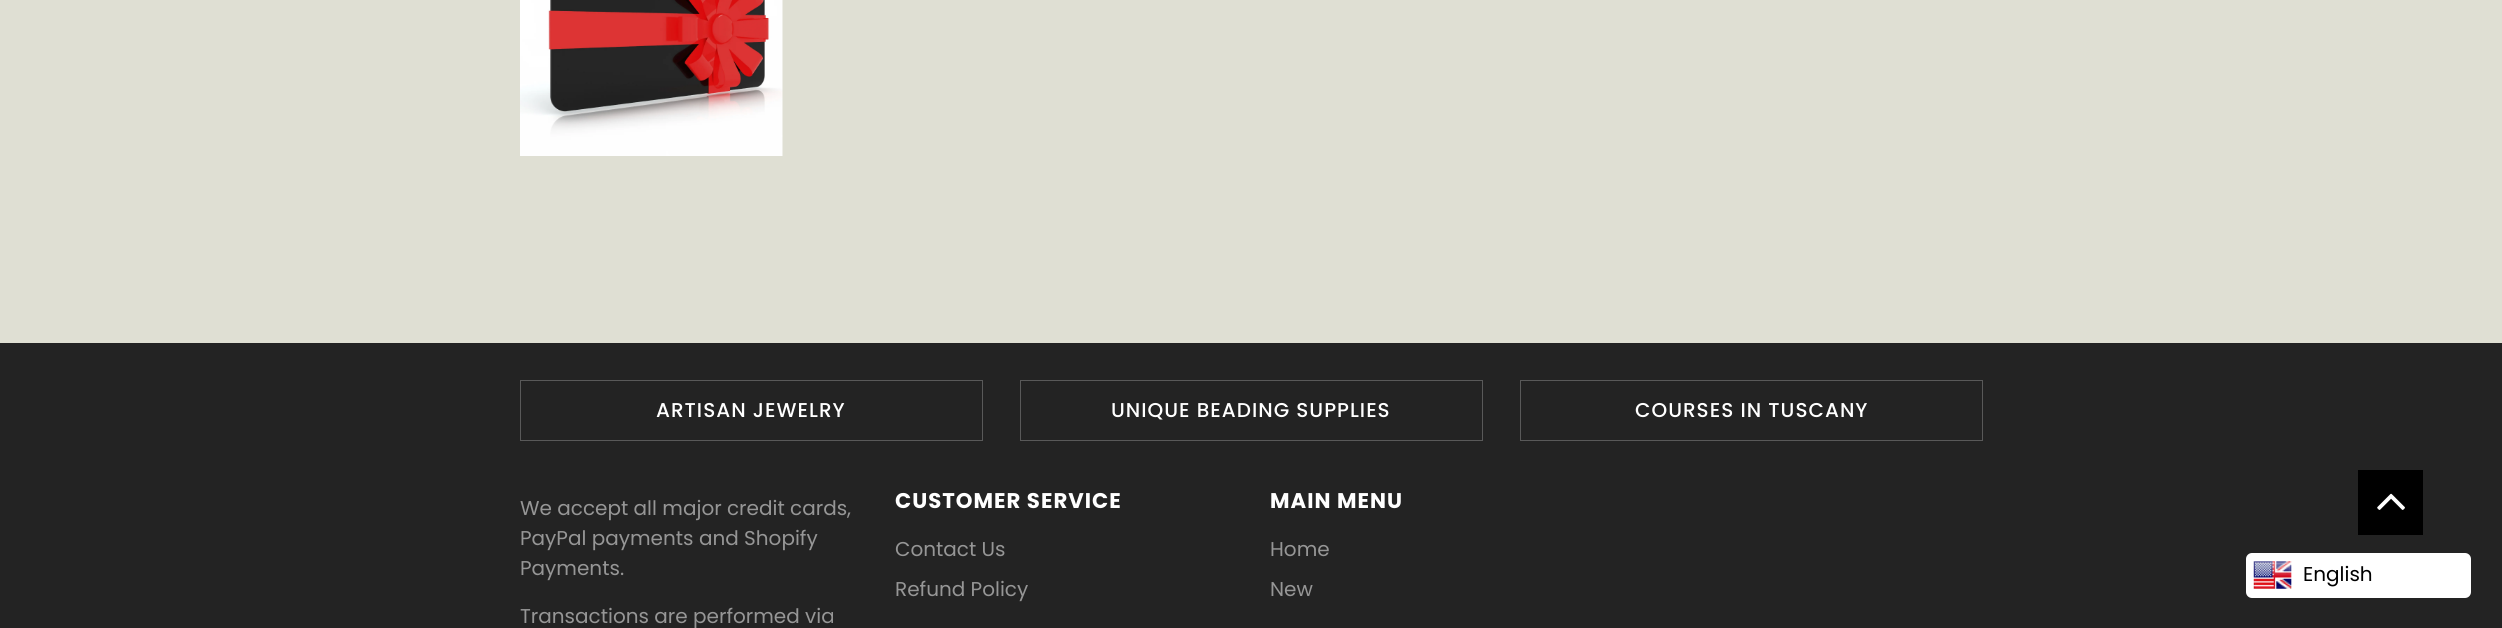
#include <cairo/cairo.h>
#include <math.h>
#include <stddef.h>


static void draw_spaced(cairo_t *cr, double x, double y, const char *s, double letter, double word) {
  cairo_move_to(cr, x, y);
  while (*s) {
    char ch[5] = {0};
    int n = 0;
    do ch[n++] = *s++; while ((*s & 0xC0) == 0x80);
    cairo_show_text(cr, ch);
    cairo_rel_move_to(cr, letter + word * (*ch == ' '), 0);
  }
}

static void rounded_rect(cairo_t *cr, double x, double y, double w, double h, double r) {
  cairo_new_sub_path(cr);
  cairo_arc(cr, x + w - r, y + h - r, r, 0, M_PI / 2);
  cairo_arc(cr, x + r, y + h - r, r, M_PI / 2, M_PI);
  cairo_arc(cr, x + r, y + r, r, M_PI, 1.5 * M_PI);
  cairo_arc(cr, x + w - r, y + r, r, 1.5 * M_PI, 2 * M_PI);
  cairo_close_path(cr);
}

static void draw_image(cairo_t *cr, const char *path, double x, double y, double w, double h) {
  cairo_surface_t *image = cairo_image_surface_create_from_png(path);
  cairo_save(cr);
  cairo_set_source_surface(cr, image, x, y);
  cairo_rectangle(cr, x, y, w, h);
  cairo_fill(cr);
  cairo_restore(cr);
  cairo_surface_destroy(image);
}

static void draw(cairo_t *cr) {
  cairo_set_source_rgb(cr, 223 / 255.0, 223 / 255.0, 211 / 255.0);
  cairo_paint(cr);
  draw_image(cr, "images/1.png", 520, 0, 263, 156);
  cairo_set_source_rgb(cr, 35 / 255.0, 35 / 255.0, 35 / 255.0);
  cairo_rectangle(cr, 0, 343, 2502, 285);
  cairo_fill(cr);
  cairo_rectangle(cr, 520.5, 380.5, 462, 60);
  cairo_set_source_rgb(cr, 89 / 255.0, 89 / 255.0, 89 / 255.0);
  cairo_set_line_width(cr, 1);
  cairo_stroke(cr);
  cairo_rectangle(cr, 1020.5, 380.5, 462, 60);
  cairo_stroke(cr);
  cairo_rectangle(cr, 1520.5, 380.5, 462, 60);
  cairo_stroke(cr);
  cairo_set_source_rgb(cr, 0, 0, 0);
  cairo_rectangle(cr, 2358, 470, 65, 65);
  cairo_fill(cr);
  draw_image(cr, "images/2.png", 2377, 493, 28, 17);
  cairo_set_source_rgb(cr, 1, 1, 1);
  rounded_rect(cr, 2246, 553, 225, 45, 6);
  cairo_fill(cr);
  draw_image(cr, "images/3.png", 2253, 561, 39, 28);
  cairo_select_font_face(cr, "Poppins Medium", CAIRO_FONT_SLANT_NORMAL, CAIRO_FONT_WEIGHT_NORMAL);
  cairo_set_font_size(cr, 20);
  draw_spaced(cr, 656, 417, "ARTISAN JEWELRY", 1, 0);
  draw_spaced(cr, 1111, 417, "UNIQUE BEADING SUPPLIES", 1, 0);
  draw_spaced(cr, 1635, 417, "COURSES IN TUSCANY", 1, 0);
  cairo_select_font_face(cr, "Poppins", CAIRO_FONT_SLANT_NORMAL, CAIRO_FONT_WEIGHT_NORMAL);
  cairo_set_source_rgb(cr, 150 / 255.0, 150 / 255.0, 150 / 255.0);
  cairo_move_to(cr, 520, 515);
  cairo_show_text(cr, "We accept all major credit cards,");
  cairo_move_to(cr, 520, 545);
  cairo_show_text(cr, "PayPal payments and Shopify");
  cairo_move_to(cr, 520, 575);
  cairo_show_text(cr, "Payments.");
  cairo_move_to(cr, 520, 623);
  cairo_show_text(cr, "Transactions are performed via");
  cairo_select_font_face(cr, "Poppins", CAIRO_FONT_SLANT_NORMAL, CAIRO_FONT_WEIGHT_BOLD);
  cairo_set_font_size(cr, 21.25);
  cairo_set_source_rgb(cr, 1, 1, 1);
  draw_spaced(cr, 895, 508, "CUSTOMER SERVICE", 1, 0);
  cairo_select_font_face(cr, "Poppins", CAIRO_FONT_SLANT_NORMAL, CAIRO_FONT_WEIGHT_NORMAL);
  cairo_set_font_size(cr, 20);
  cairo_set_source_rgb(cr, 150 / 255.0, 150 / 255.0, 150 / 255.0);
  cairo_move_to(cr, 895, 556);
  cairo_show_text(cr, "Contact Us");
  cairo_move_to(cr, 895, 596);
  cairo_show_text(cr, "Refund Policy");
  cairo_select_font_face(cr, "Poppins", CAIRO_FONT_SLANT_NORMAL, CAIRO_FONT_WEIGHT_BOLD);
  cairo_set_font_size(cr, 21.25);
  cairo_set_source_rgb(cr, 1, 1, 1);
  draw_spaced(cr, 1270, 508, "MAIN MENU", 1, 0);
  cairo_select_font_face(cr, "Poppins", CAIRO_FONT_SLANT_NORMAL, CAIRO_FONT_WEIGHT_NORMAL);
  cairo_set_font_size(cr, 20);
  cairo_set_source_rgb(cr, 150 / 255.0, 150 / 255.0, 150 / 255.0);
  cairo_move_to(cr, 1270, 556);
  cairo_show_text(cr, "Home");
  cairo_move_to(cr, 1270, 596);
  cairo_show_text(cr, "New");
  cairo_set_source_rgb(cr, 0, 0, 0);
  cairo_move_to(cr, 2303, 581);
  cairo_show_text(cr, "English");
}

int main(void) {
  cairo_surface_t *surface = cairo_image_surface_create(CAIRO_FORMAT_RGB24, 2502, 628);
  cairo_t *cr = cairo_create(surface);
  cairo_font_options_t *options = cairo_font_options_create();
  cairo_font_options_set_hint_metrics(options, CAIRO_HINT_METRICS_OFF);
  cairo_font_options_set_hint_style(options, CAIRO_HINT_STYLE_NONE);
  cairo_set_font_options(cr, options);
  cairo_set_miter_limit(cr, 4);
  draw(cr);
  cairo_surface_write_to_png(surface, "out.png");
  cairo_font_options_destroy(options);
  cairo_destroy(cr);
  cairo_surface_destroy(surface);
  return 0;
}
